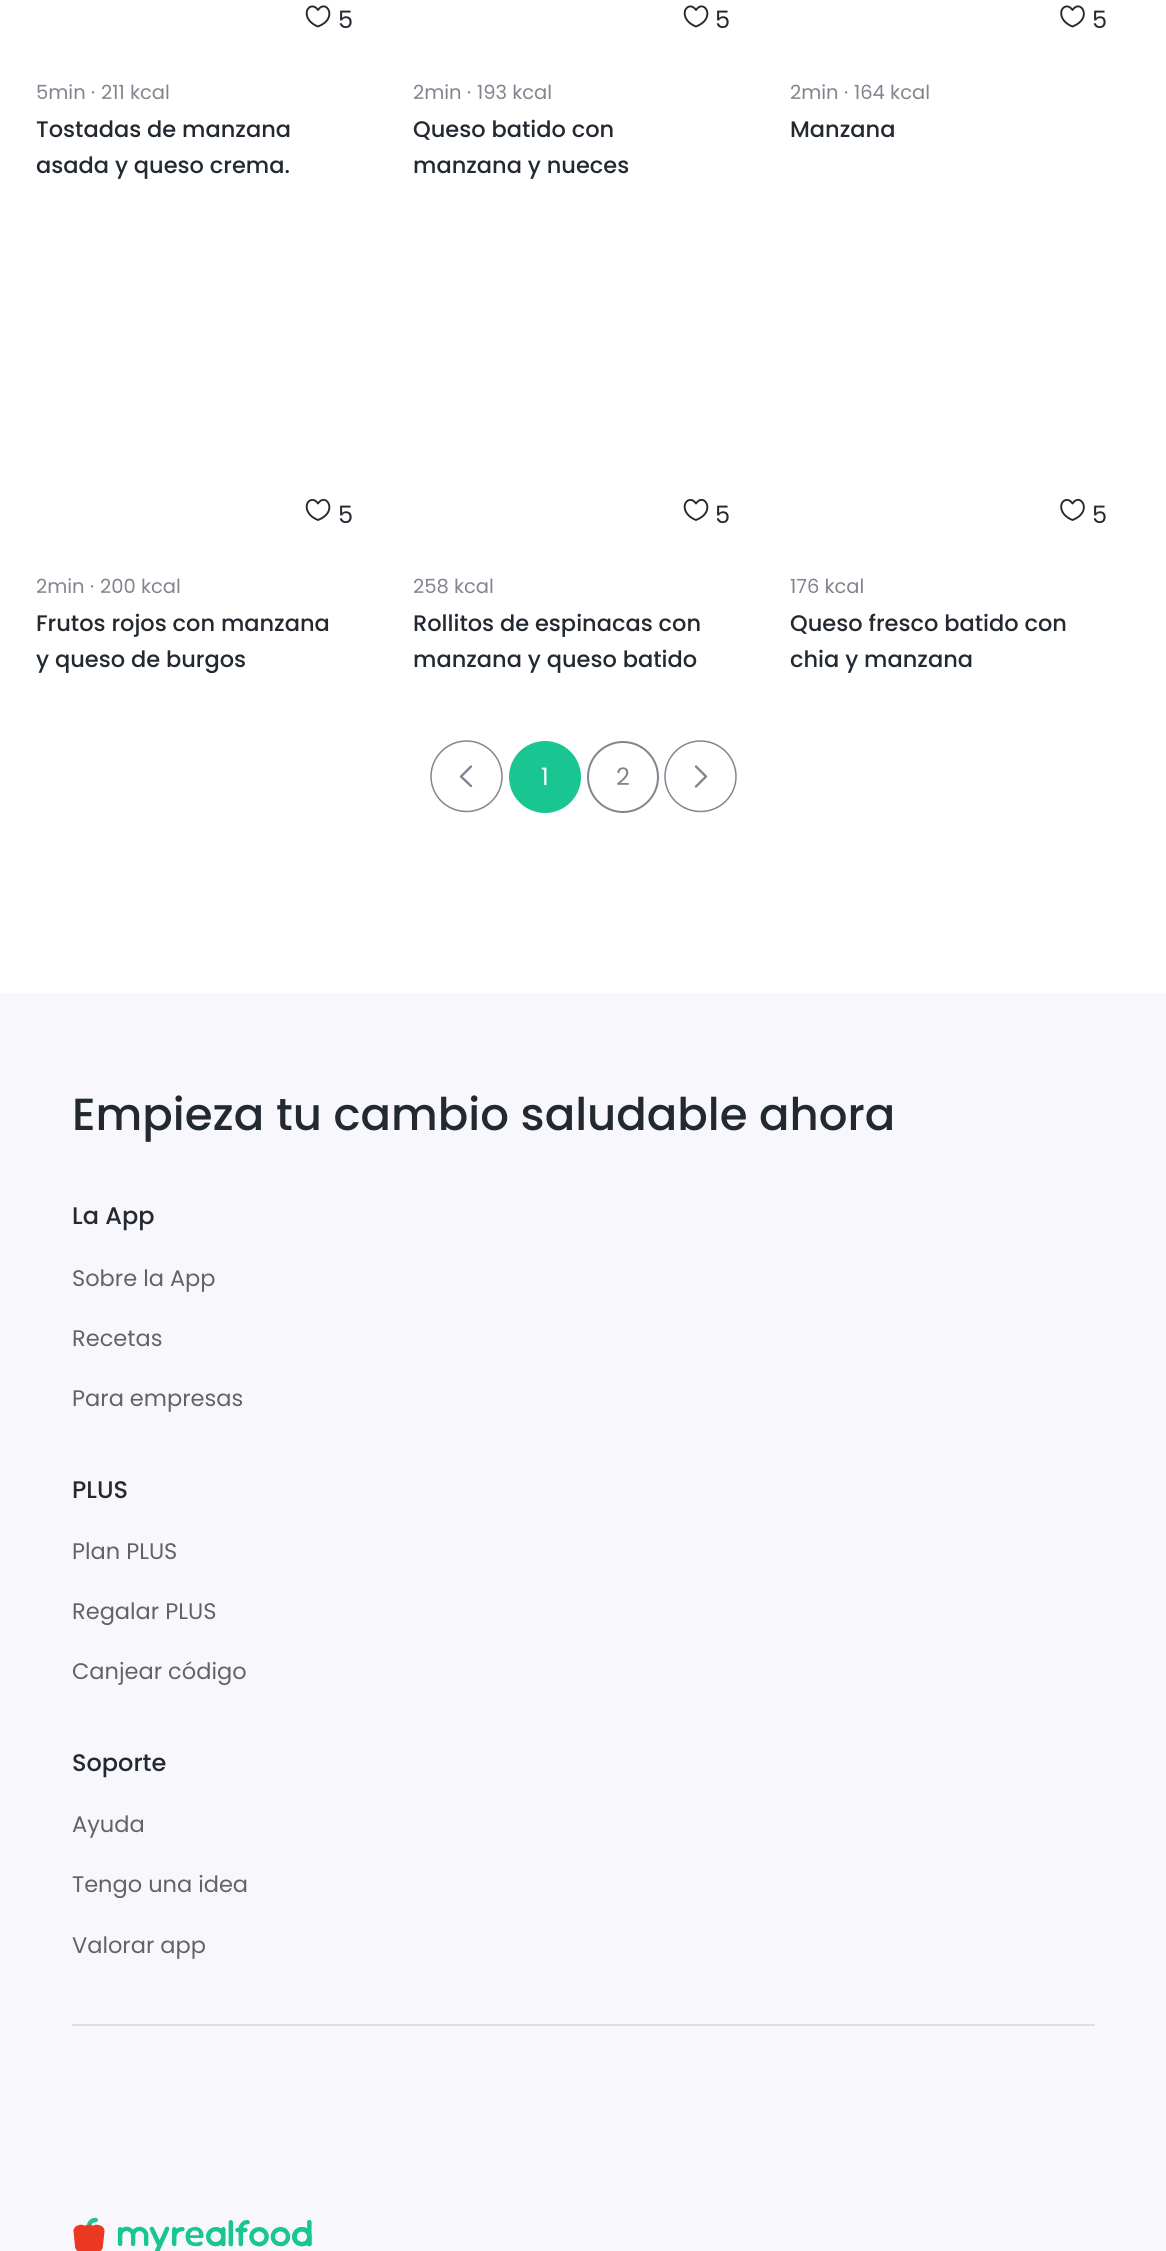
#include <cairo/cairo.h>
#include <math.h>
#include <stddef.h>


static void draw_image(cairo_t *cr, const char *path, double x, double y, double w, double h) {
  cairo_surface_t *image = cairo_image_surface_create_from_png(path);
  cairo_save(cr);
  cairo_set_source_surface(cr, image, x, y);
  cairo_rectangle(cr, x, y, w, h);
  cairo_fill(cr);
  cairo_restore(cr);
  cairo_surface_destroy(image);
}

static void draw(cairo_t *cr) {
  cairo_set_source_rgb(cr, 1, 1, 1);
  cairo_paint(cr);
  cairo_new_path(cr);
  cairo_move_to(cr, 318, 10);
  cairo_curve_to(cr, 317, 8.5, 314, 5, 310, 7);
  cairo_curve_to(cr, 304.5, 10, 305, 21.5, 318, 26.5);
  cairo_move_to(cr, 318, 10);
  cairo_curve_to(cr, 326, -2, 339, 18.5, 318, 26.5);
  cairo_set_source_rgb(cr, 35 / 255.0, 41 / 255.0, 48 / 255.0);
  cairo_set_line_width(cr, 1.9);
  cairo_set_line_cap(cr, CAIRO_LINE_CAP_ROUND);
  cairo_stroke(cr);
  cairo_new_path(cr);
  cairo_move_to(cr, 696, 10);
  cairo_curve_to(cr, 695, 8.5, 692, 5, 688, 7);
  cairo_curve_to(cr, 682.5, 10, 683, 21.5, 696, 26.5);
  cairo_move_to(cr, 696, 10);
  cairo_curve_to(cr, 704, -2, 717, 18.5, 696, 26.5);
  cairo_stroke(cr);
  cairo_new_path(cr);
  cairo_move_to(cr, 1072.5, 10);
  cairo_curve_to(cr, 1071.5, 8.5, 1068.5, 5, 1064.5, 7);
  cairo_curve_to(cr, 1059, 10, 1059.5, 21.5, 1072.5, 26.5);
  cairo_move_to(cr, 1072.5, 10);
  cairo_curve_to(cr, 1080.5, -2, 1093.5, 18.5, 1072.5, 26.5);
  cairo_stroke(cr);
  cairo_new_path(cr);
  cairo_move_to(cr, 318, 503.5);
  cairo_curve_to(cr, 317, 502, 314, 498.5, 310, 500.5);
  cairo_curve_to(cr, 304.5, 503.5, 305, 515, 318, 520);
  cairo_move_to(cr, 318, 503.5);
  cairo_curve_to(cr, 326, 491.5, 339, 512, 318, 520);
  cairo_stroke(cr);
  cairo_new_path(cr);
  cairo_move_to(cr, 696, 503.5);
  cairo_curve_to(cr, 695, 502, 692, 498.5, 688, 500.5);
  cairo_curve_to(cr, 682.5, 503.5, 683, 515, 696, 520);
  cairo_move_to(cr, 696, 503.5);
  cairo_curve_to(cr, 704, 491.5, 717, 512, 696, 520);
  cairo_stroke(cr);
  cairo_new_path(cr);
  cairo_move_to(cr, 1072.5, 503.5);
  cairo_curve_to(cr, 1071.5, 502, 1068.5, 498.5, 1064.5, 500.5);
  cairo_curve_to(cr, 1059, 503.5, 1059.5, 515, 1072.5, 520);
  cairo_move_to(cr, 1072.5, 503.5);
  cairo_curve_to(cr, 1080.5, 491.5, 1093.5, 512, 1072.5, 520);
  cairo_stroke(cr);
  cairo_new_path(cr);
  cairo_move_to(cr, 502, 776.5);
  cairo_curve_to(cr, 502, 796, 486, 811.5, 466.5, 811.5);
  cairo_curve_to(cr, 447, 811.5, 431, 796, 431, 776.5);
  cairo_curve_to(cr, 431, 757, 447, 741, 466.5, 741);
  cairo_curve_to(cr, 486, 741, 502, 757, 502, 776.5);
  cairo_close_path(cr);
  cairo_set_source_rgb(cr, 130 / 255.0, 132 / 255.0, 143 / 255.0);
  cairo_set_line_width(cr, 1.5);
  cairo_set_line_cap(cr, CAIRO_LINE_CAP_BUTT);
  cairo_stroke(cr);
  cairo_new_path(cr);
  cairo_move_to(cr, 471, 766.5);
  cairo_line_to(cr, 461, 776.5);
  cairo_line_to(cr, 471, 786);
  cairo_set_line_width(cr, 2.4);
  cairo_set_line_cap(cr, CAIRO_LINE_CAP_ROUND);
  cairo_set_line_join(cr, CAIRO_LINE_JOIN_ROUND);
  cairo_stroke(cr);
  cairo_set_source_rgb(cr, 25 / 255.0, 198 / 255.0, 146 / 255.0);
  cairo_arc(cr, 545, 777, 36, 0, 2 * M_PI);
  cairo_fill(cr);
  cairo_arc(cr, 623, 777, 35, 0, 2 * M_PI);
  cairo_set_source_rgb(cr, 130 / 255.0, 132 / 255.0, 143 / 255.0);
  cairo_set_line_width(cr, 2);
  cairo_set_line_cap(cr, CAIRO_LINE_CAP_BUTT);
  cairo_set_line_join(cr, CAIRO_LINE_JOIN_MITER);
  cairo_stroke(cr);
  cairo_new_path(cr);
  cairo_move_to(cr, 665, 776.5);
  cairo_curve_to(cr, 665, 757, 681, 741, 700.5, 741);
  cairo_curve_to(cr, 720, 741, 736, 757, 736, 776.5);
  cairo_curve_to(cr, 736, 796, 720, 811.5, 700.5, 811.5);
  cairo_curve_to(cr, 681, 811.5, 665, 796, 665, 776.5);
  cairo_close_path(cr);
  cairo_set_line_width(cr, 1.5);
  cairo_stroke(cr);
  cairo_new_path(cr);
  cairo_move_to(cr, 696, 786.5);
  cairo_line_to(cr, 706, 776.5);
  cairo_line_to(cr, 696, 766.5);
  cairo_set_line_width(cr, 2.4);
  cairo_set_line_cap(cr, CAIRO_LINE_CAP_ROUND);
  cairo_set_line_join(cr, CAIRO_LINE_JOIN_ROUND);
  cairo_stroke(cr);
  cairo_set_source_rgb(cr, 248 / 255.0, 248 / 255.0, 252 / 255.0);
  cairo_rectangle(cr, 0, 993, 1166, 1258);
  cairo_fill(cr);
  cairo_set_source_rgb(cr, 222 / 255.0, 222 / 255.0, 228 / 255.0);
  cairo_rectangle(cr, 72, 2024, 1023, 2);
  cairo_fill(cr);
  draw_image(cr, "images/1.png", 73, 2217, 239, 34);
  cairo_select_font_face(cr, "Poppins", CAIRO_FONT_SLANT_NORMAL, CAIRO_FONT_WEIGHT_NORMAL);
  cairo_set_font_size(cr, 24);
  cairo_set_source_rgb(cr, 35 / 255.0, 41 / 255.0, 48 / 255.0);
  cairo_move_to(cr, 338, 28);
  cairo_show_text(cr, "5");
  cairo_set_font_size(cr, 19.5);
  cairo_set_source_rgb(cr, 130 / 255.0, 132 / 255.0, 143 / 255.0);
  cairo_move_to(cr, 36, 99);
  cairo_show_text(cr, "5min");
  cairo_move_to(cr, 91, 99);
  cairo_show_text(cr, "·");
  cairo_move_to(cr, 101, 99);
  cairo_show_text(cr, "211 kcal");
  cairo_select_font_face(cr, "Poppins Medium", CAIRO_FONT_SLANT_NORMAL, CAIRO_FONT_WEIGHT_NORMAL);
  cairo_set_font_size(cr, 22.5);
  cairo_set_source_rgb(cr, 35 / 255.0, 41 / 255.0, 48 / 255.0);
  cairo_move_to(cr, 36, 137);
  cairo_show_text(cr, "Tostadas de manzana");
  cairo_move_to(cr, 36, 173);
  cairo_show_text(cr, "asada y queso crema.");
  cairo_select_font_face(cr, "Poppins", CAIRO_FONT_SLANT_NORMAL, CAIRO_FONT_WEIGHT_NORMAL);
  cairo_set_font_size(cr, 24);
  cairo_move_to(cr, 715, 28);
  cairo_show_text(cr, "5");
  cairo_set_font_size(cr, 19.5);
  cairo_set_source_rgb(cr, 130 / 255.0, 132 / 255.0, 143 / 255.0);
  cairo_move_to(cr, 413, 99);
  cairo_show_text(cr, "2min");
  cairo_move_to(cr, 467, 99);
  cairo_show_text(cr, "·");
  cairo_move_to(cr, 477, 99);
  cairo_show_text(cr, "193 kcal");
  cairo_select_font_face(cr, "Poppins Medium", CAIRO_FONT_SLANT_NORMAL, CAIRO_FONT_WEIGHT_NORMAL);
  cairo_set_font_size(cr, 22.5);
  cairo_set_source_rgb(cr, 35 / 255.0, 41 / 255.0, 48 / 255.0);
  cairo_move_to(cr, 413, 137);
  cairo_show_text(cr, "Queso batido con");
  cairo_move_to(cr, 413, 173);
  cairo_show_text(cr, "manzana y nueces");
  cairo_select_font_face(cr, "Poppins", CAIRO_FONT_SLANT_NORMAL, CAIRO_FONT_WEIGHT_NORMAL);
  cairo_set_font_size(cr, 24);
  cairo_move_to(cr, 1092, 28);
  cairo_show_text(cr, "5");
  cairo_set_font_size(cr, 19.5);
  cairo_set_source_rgb(cr, 130 / 255.0, 132 / 255.0, 143 / 255.0);
  cairo_move_to(cr, 790, 99);
  cairo_show_text(cr, "2min");
  cairo_move_to(cr, 844, 99);
  cairo_show_text(cr, "·");
  cairo_move_to(cr, 854, 99);
  cairo_show_text(cr, "164 kcal");
  cairo_select_font_face(cr, "Poppins Medium", CAIRO_FONT_SLANT_NORMAL, CAIRO_FONT_WEIGHT_NORMAL);
  cairo_set_font_size(cr, 22.5);
  cairo_set_source_rgb(cr, 35 / 255.0, 41 / 255.0, 48 / 255.0);
  cairo_move_to(cr, 790, 137);
  cairo_show_text(cr, "Manzana");
  cairo_select_font_face(cr, "Poppins", CAIRO_FONT_SLANT_NORMAL, CAIRO_FONT_WEIGHT_NORMAL);
  cairo_set_font_size(cr, 24);
  cairo_move_to(cr, 338, 523);
  cairo_show_text(cr, "5");
  cairo_set_font_size(cr, 19.5);
  cairo_set_source_rgb(cr, 130 / 255.0, 132 / 255.0, 143 / 255.0);
  cairo_move_to(cr, 36, 593);
  cairo_show_text(cr, "2min");
  cairo_move_to(cr, 90, 593);
  cairo_show_text(cr, "·");
  cairo_move_to(cr, 100, 593);
  cairo_show_text(cr, "200 kcal");
  cairo_select_font_face(cr, "Poppins Medium", CAIRO_FONT_SLANT_NORMAL, CAIRO_FONT_WEIGHT_NORMAL);
  cairo_set_font_size(cr, 22.5);
  cairo_set_source_rgb(cr, 35 / 255.0, 41 / 255.0, 48 / 255.0);
  cairo_move_to(cr, 36, 631);
  cairo_show_text(cr, "Frutos rojos con manzana");
  cairo_move_to(cr, 36, 667);
  cairo_show_text(cr, "y queso de burgos");
  cairo_select_font_face(cr, "Poppins", CAIRO_FONT_SLANT_NORMAL, CAIRO_FONT_WEIGHT_NORMAL);
  cairo_set_font_size(cr, 24);
  cairo_move_to(cr, 715, 523);
  cairo_show_text(cr, "5");
  cairo_set_font_size(cr, 19.5);
  cairo_set_source_rgb(cr, 130 / 255.0, 132 / 255.0, 143 / 255.0);
  cairo_move_to(cr, 413, 593);
  cairo_show_text(cr, "258 kcal");
  cairo_select_font_face(cr, "Poppins Medium", CAIRO_FONT_SLANT_NORMAL, CAIRO_FONT_WEIGHT_NORMAL);
  cairo_set_font_size(cr, 22.5);
  cairo_set_source_rgb(cr, 35 / 255.0, 41 / 255.0, 48 / 255.0);
  cairo_move_to(cr, 413, 631);
  cairo_show_text(cr, "Rollitos de espinacas con");
  cairo_move_to(cr, 413, 667);
  cairo_show_text(cr, "manzana y queso batido");
  cairo_select_font_face(cr, "Poppins", CAIRO_FONT_SLANT_NORMAL, CAIRO_FONT_WEIGHT_NORMAL);
  cairo_set_font_size(cr, 24);
  cairo_move_to(cr, 1092, 523);
  cairo_show_text(cr, "5");
  cairo_set_font_size(cr, 19.5);
  cairo_set_source_rgb(cr, 130 / 255.0, 132 / 255.0, 143 / 255.0);
  cairo_move_to(cr, 790, 593);
  cairo_show_text(cr, "176 kcal");
  cairo_select_font_face(cr, "Poppins Medium", CAIRO_FONT_SLANT_NORMAL, CAIRO_FONT_WEIGHT_NORMAL);
  cairo_set_font_size(cr, 22.5);
  cairo_set_source_rgb(cr, 35 / 255.0, 41 / 255.0, 48 / 255.0);
  cairo_move_to(cr, 790, 631);
  cairo_show_text(cr, "Queso fresco batido con");
  cairo_move_to(cr, 790, 667);
  cairo_show_text(cr, "chia y manzana");
  cairo_select_font_face(cr, "Poppins", CAIRO_FONT_SLANT_NORMAL, CAIRO_FONT_WEIGHT_NORMAL);
  cairo_set_font_size(cr, 24);
  cairo_set_source_rgb(cr, 1, 1, 1);
  cairo_move_to(cr, 541, 785);
  cairo_show_text(cr, "1");
  cairo_set_source_rgb(cr, 130 / 255.0, 132 / 255.0, 143 / 255.0);
  cairo_move_to(cr, 616, 785);
  cairo_show_text(cr, "2");
  cairo_select_font_face(cr, "Poppins Medium", CAIRO_FONT_SLANT_NORMAL, CAIRO_FONT_WEIGHT_NORMAL);
  cairo_set_font_size(cr, 45);
  cairo_set_source_rgb(cr, 35 / 255.0, 41 / 255.0, 48 / 255.0);
  cairo_move_to(cr, 72, 1130);
  cairo_show_text(cr, "Empieza tu cambio saludable ahora");
  cairo_set_font_size(cr, 24);
  cairo_move_to(cr, 72, 1224);
  cairo_show_text(cr, "La App");
  cairo_select_font_face(cr, "Poppins", CAIRO_FONT_SLANT_NORMAL, CAIRO_FONT_WEIGHT_NORMAL);
  cairo_set_font_size(cr, 22.5);
  cairo_set_source_rgb(cr, 96 / 255.0, 99 / 255.0, 103 / 255.0);
  cairo_move_to(cr, 72, 1286);
  cairo_show_text(cr, "Sobre la App");
  cairo_move_to(cr, 72, 1346);
  cairo_show_text(cr, "Recetas");
  cairo_move_to(cr, 72, 1406);
  cairo_show_text(cr, "Para empresas");
  cairo_select_font_face(cr, "Poppins Medium", CAIRO_FONT_SLANT_NORMAL, CAIRO_FONT_WEIGHT_NORMAL);
  cairo_set_font_size(cr, 24);
  cairo_set_source_rgb(cr, 35 / 255.0, 41 / 255.0, 48 / 255.0);
  cairo_move_to(cr, 72, 1498);
  cairo_show_text(cr, "PLUS");
  cairo_select_font_face(cr, "Poppins", CAIRO_FONT_SLANT_NORMAL, CAIRO_FONT_WEIGHT_NORMAL);
  cairo_set_font_size(cr, 22.5);
  cairo_set_source_rgb(cr, 96 / 255.0, 99 / 255.0, 103 / 255.0);
  cairo_move_to(cr, 72, 1559);
  cairo_show_text(cr, "Plan PLUS");
  cairo_move_to(cr, 72, 1619);
  cairo_show_text(cr, "Regalar PLUS");
  cairo_move_to(cr, 72, 1679);
  cairo_show_text(cr, "Canjear código");
  cairo_select_font_face(cr, "Poppins Medium", CAIRO_FONT_SLANT_NORMAL, CAIRO_FONT_WEIGHT_NORMAL);
  cairo_set_font_size(cr, 24);
  cairo_set_source_rgb(cr, 35 / 255.0, 41 / 255.0, 48 / 255.0);
  cairo_move_to(cr, 72, 1771);
  cairo_show_text(cr, "Soporte");
  cairo_select_font_face(cr, "Poppins", CAIRO_FONT_SLANT_NORMAL, CAIRO_FONT_WEIGHT_NORMAL);
  cairo_set_font_size(cr, 22.5);
  cairo_set_source_rgb(cr, 96 / 255.0, 99 / 255.0, 103 / 255.0);
  cairo_move_to(cr, 72, 1832);
  cairo_show_text(cr, "Ayuda");
  cairo_move_to(cr, 72, 1892);
  cairo_show_text(cr, "Tengo una idea");
  cairo_move_to(cr, 72, 1953);
  cairo_show_text(cr, "Valorar app");
}

int main(void) {
  cairo_surface_t *surface = cairo_image_surface_create(CAIRO_FORMAT_RGB24, 1166, 2251);
  cairo_t *cr = cairo_create(surface);
  cairo_font_options_t *options = cairo_font_options_create();
  cairo_font_options_set_hint_metrics(options, CAIRO_HINT_METRICS_OFF);
  cairo_font_options_set_hint_style(options, CAIRO_HINT_STYLE_NONE);
  cairo_set_font_options(cr, options);
  cairo_set_miter_limit(cr, 4);
  draw(cr);
  cairo_surface_write_to_png(surface, "out.png");
  cairo_font_options_destroy(options);
  cairo_destroy(cr);
  cairo_surface_destroy(surface);
  return 0;
}
